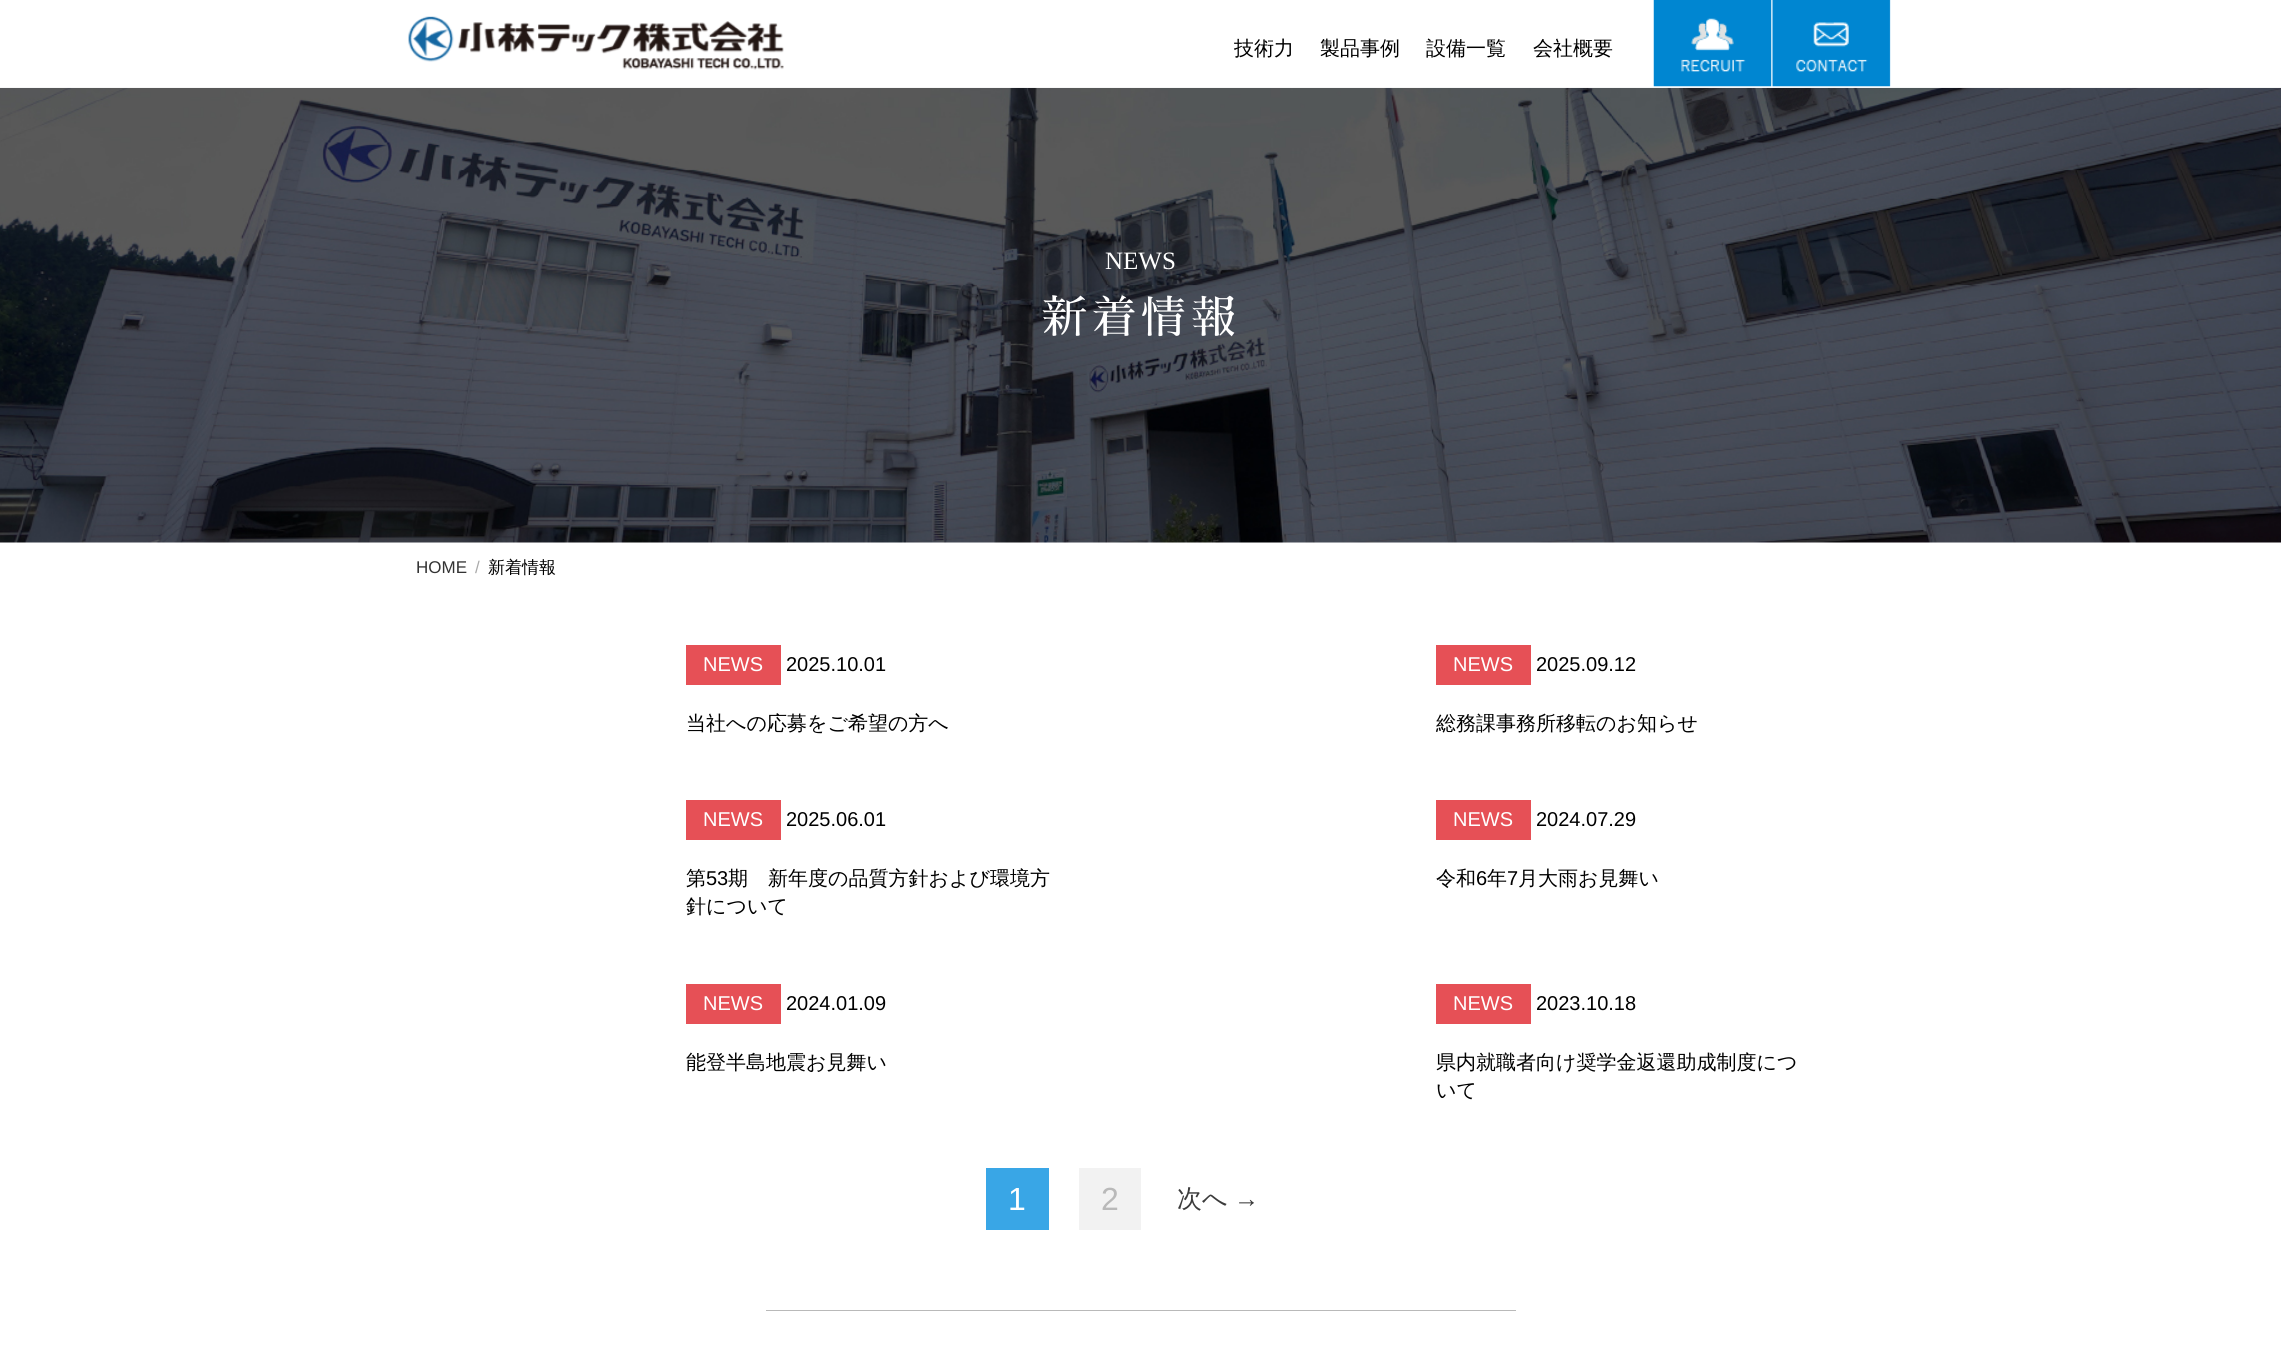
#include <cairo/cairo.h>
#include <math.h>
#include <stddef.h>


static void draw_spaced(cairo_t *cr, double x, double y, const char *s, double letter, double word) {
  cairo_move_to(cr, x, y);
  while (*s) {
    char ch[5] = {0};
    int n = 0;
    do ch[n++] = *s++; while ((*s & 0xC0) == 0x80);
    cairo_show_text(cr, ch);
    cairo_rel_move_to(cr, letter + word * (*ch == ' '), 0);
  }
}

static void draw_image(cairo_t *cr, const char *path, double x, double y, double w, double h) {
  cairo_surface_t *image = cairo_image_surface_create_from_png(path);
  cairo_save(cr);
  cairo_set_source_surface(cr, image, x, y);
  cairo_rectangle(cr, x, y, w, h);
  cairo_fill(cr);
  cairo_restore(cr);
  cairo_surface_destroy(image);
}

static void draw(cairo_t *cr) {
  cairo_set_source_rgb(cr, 1, 1, 1);
  cairo_paint(cr);
  draw_image(cr, "images/4.png", 0, 87, 2281, 456);
  cairo_set_source_rgba(cr, 1, 1, 1, 0.9);
  cairo_rectangle(cr, 0, 87, 2281, 1);
  cairo_fill(cr);
  draw_image(cr, "images/1.png", 408, 16, 376, 54);
  draw_image(cr, "images/2.png", 1653, 0, 119, 87);
  draw_image(cr, "images/3.png", 1772, 0, 119, 87);
  cairo_set_source_rgb(cr, 230 / 255.0, 80 / 255.0, 86 / 255.0);
  cairo_rectangle(cr, 686, 645, 95, 40);
  cairo_fill(cr);
  cairo_rectangle(cr, 1436, 645, 95, 40);
  cairo_fill(cr);
  cairo_rectangle(cr, 686, 800, 95, 40);
  cairo_fill(cr);
  cairo_rectangle(cr, 1436, 800, 95, 40);
  cairo_fill(cr);
  cairo_rectangle(cr, 686, 984, 95, 40);
  cairo_fill(cr);
  cairo_rectangle(cr, 1436, 984, 95, 40);
  cairo_fill(cr);
  cairo_set_source_rgb(cr, 185 / 255.0, 185 / 255.0, 185 / 255.0);
  cairo_rectangle(cr, 766, 1310, 750, 1);
  cairo_fill(cr);
  cairo_set_source_rgb(cr, 57 / 255.0, 166 / 255.0, 230 / 255.0);
  cairo_rectangle(cr, 986, 1168, 63, 62);
  cairo_fill(cr);
  cairo_set_source_rgb(cr, 242 / 255.0, 242 / 255.0, 242 / 255.0);
  cairo_rectangle(cr, 1079, 1168, 62, 62);
  cairo_fill(cr);
  cairo_select_font_face(cr, "WenQuanYi Zen Hei Medium", CAIRO_FONT_SLANT_NORMAL, CAIRO_FONT_WEIGHT_NORMAL);
  cairo_set_font_size(cr, 20);
  cairo_set_source_rgb(cr, 0, 0, 0);
  cairo_move_to(cr, 1234, 55);
  cairo_show_text(cr, "技術力");
  cairo_move_to(cr, 1320, 55);
  cairo_show_text(cr, "製品事例");
  cairo_move_to(cr, 1426, 55);
  cairo_show_text(cr, "設備一覧");
  cairo_move_to(cr, 1533, 55);
  cairo_show_text(cr, "会社概要");
  cairo_select_font_face(cr, "Liberation Serif", CAIRO_FONT_SLANT_NORMAL, CAIRO_FONT_WEIGHT_NORMAL);
  cairo_set_font_size(cr, 25);
  cairo_set_source_rgb(cr, 1, 1, 1);
  cairo_move_to(cr, 1105, 269);
  cairo_show_text(cr, "NEWS");
  cairo_select_font_face(cr, "Sawarabi Mincho", CAIRO_FONT_SLANT_NORMAL, CAIRO_FONT_WEIGHT_NORMAL);
  cairo_set_font_size(cr, 45);
  draw_spaced(cr, 1042, 333, "新着情報", 4.5, 0);
  cairo_select_font_face(cr, "Liberation Sans", CAIRO_FONT_SLANT_NORMAL, CAIRO_FONT_WEIGHT_NORMAL);
  cairo_set_font_size(cr, 17);
  cairo_set_source_rgb(cr, 51 / 255.0, 51 / 255.0, 51 / 255.0);
  cairo_move_to(cr, 416, 573);
  cairo_show_text(cr, "HOME");
  cairo_set_source_rgb(cr, 170 / 255.0, 170 / 255.0, 170 / 255.0);
  cairo_move_to(cr, 475, 573);
  cairo_show_text(cr, "/");
  cairo_select_font_face(cr, "WenQuanYi Zen Hei Medium", CAIRO_FONT_SLANT_NORMAL, CAIRO_FONT_WEIGHT_NORMAL);
  cairo_set_source_rgb(cr, 0, 0, 0);
  cairo_move_to(cr, 488, 573);
  cairo_show_text(cr, "新着情報");
  cairo_select_font_face(cr, "Liberation Sans", CAIRO_FONT_SLANT_NORMAL, CAIRO_FONT_WEIGHT_NORMAL);
  cairo_set_font_size(cr, 20);
  cairo_set_source_rgb(cr, 1, 1, 1);
  cairo_move_to(cr, 703, 671);
  cairo_show_text(cr, "NEWS");
  cairo_set_source_rgb(cr, 0, 0, 0);
  cairo_move_to(cr, 786, 671);
  cairo_show_text(cr, "2025.10.01");
  cairo_select_font_face(cr, "WenQuanYi Zen Hei Medium", CAIRO_FONT_SLANT_NORMAL, CAIRO_FONT_WEIGHT_NORMAL);
  cairo_move_to(cr, 686, 730);
  cairo_show_text(cr, "当社への応募をご希望の方へ");
  cairo_select_font_face(cr, "Liberation Sans", CAIRO_FONT_SLANT_NORMAL, CAIRO_FONT_WEIGHT_NORMAL);
  cairo_set_source_rgb(cr, 1, 1, 1);
  cairo_move_to(cr, 1453, 671);
  cairo_show_text(cr, "NEWS");
  cairo_set_source_rgb(cr, 0, 0, 0);
  cairo_move_to(cr, 1536, 671);
  cairo_show_text(cr, "2025.09.12");
  cairo_select_font_face(cr, "WenQuanYi Zen Hei Medium", CAIRO_FONT_SLANT_NORMAL, CAIRO_FONT_WEIGHT_NORMAL);
  cairo_move_to(cr, 1436, 730);
  cairo_show_text(cr, "総務課事務所移転のお知らせ");
  cairo_select_font_face(cr, "Liberation Sans", CAIRO_FONT_SLANT_NORMAL, CAIRO_FONT_WEIGHT_NORMAL);
  cairo_set_source_rgb(cr, 1, 1, 1);
  cairo_move_to(cr, 703, 826);
  cairo_show_text(cr, "NEWS");
  cairo_set_source_rgb(cr, 0, 0, 0);
  cairo_move_to(cr, 786, 826);
  cairo_show_text(cr, "2025.06.01");
  cairo_select_font_face(cr, "WenQuanYi Zen Hei Medium", CAIRO_FONT_SLANT_NORMAL, CAIRO_FONT_WEIGHT_NORMAL);
  cairo_move_to(cr, 686, 885);
  cairo_show_text(cr, "第");
  cairo_select_font_face(cr, "Liberation Sans", CAIRO_FONT_SLANT_NORMAL, CAIRO_FONT_WEIGHT_NORMAL);
  cairo_move_to(cr, 706, 885);
  cairo_show_text(cr, "53");
  cairo_select_font_face(cr, "WenQuanYi Zen Hei Medium", CAIRO_FONT_SLANT_NORMAL, CAIRO_FONT_WEIGHT_NORMAL);
  cairo_move_to(cr, 728, 885);
  cairo_show_text(cr, "期　新年度の品質方針および環境方");
  cairo_move_to(cr, 686, 913);
  cairo_show_text(cr, "針について");
  cairo_select_font_face(cr, "Liberation Sans", CAIRO_FONT_SLANT_NORMAL, CAIRO_FONT_WEIGHT_NORMAL);
  cairo_set_source_rgb(cr, 1, 1, 1);
  cairo_move_to(cr, 1453, 826);
  cairo_show_text(cr, "NEWS");
  cairo_set_source_rgb(cr, 0, 0, 0);
  cairo_move_to(cr, 1536, 826);
  cairo_show_text(cr, "2024.07.29");
  cairo_select_font_face(cr, "WenQuanYi Zen Hei Medium", CAIRO_FONT_SLANT_NORMAL, CAIRO_FONT_WEIGHT_NORMAL);
  cairo_move_to(cr, 1436, 885);
  cairo_show_text(cr, "令和");
  cairo_select_font_face(cr, "Liberation Sans", CAIRO_FONT_SLANT_NORMAL, CAIRO_FONT_WEIGHT_NORMAL);
  cairo_move_to(cr, 1476, 885);
  cairo_show_text(cr, "6");
  cairo_select_font_face(cr, "WenQuanYi Zen Hei Medium", CAIRO_FONT_SLANT_NORMAL, CAIRO_FONT_WEIGHT_NORMAL);
  cairo_move_to(cr, 1487, 885);
  cairo_show_text(cr, "年");
  cairo_select_font_face(cr, "Liberation Sans", CAIRO_FONT_SLANT_NORMAL, CAIRO_FONT_WEIGHT_NORMAL);
  cairo_move_to(cr, 1507, 885);
  cairo_show_text(cr, "7");
  cairo_select_font_face(cr, "WenQuanYi Zen Hei Medium", CAIRO_FONT_SLANT_NORMAL, CAIRO_FONT_WEIGHT_NORMAL);
  cairo_move_to(cr, 1518, 885);
  cairo_show_text(cr, "月大雨お見舞い");
  cairo_select_font_face(cr, "Liberation Sans", CAIRO_FONT_SLANT_NORMAL, CAIRO_FONT_WEIGHT_NORMAL);
  cairo_set_source_rgb(cr, 1, 1, 1);
  cairo_move_to(cr, 703, 1010);
  cairo_show_text(cr, "NEWS");
  cairo_set_source_rgb(cr, 0, 0, 0);
  cairo_move_to(cr, 786, 1010);
  cairo_show_text(cr, "2024.01.09");
  cairo_select_font_face(cr, "WenQuanYi Zen Hei Medium", CAIRO_FONT_SLANT_NORMAL, CAIRO_FONT_WEIGHT_NORMAL);
  cairo_move_to(cr, 686, 1069);
  cairo_show_text(cr, "能登半島地震お見舞い");
  cairo_select_font_face(cr, "Liberation Sans", CAIRO_FONT_SLANT_NORMAL, CAIRO_FONT_WEIGHT_NORMAL);
  cairo_set_source_rgb(cr, 1, 1, 1);
  cairo_move_to(cr, 1453, 1010);
  cairo_show_text(cr, "NEWS");
  cairo_set_source_rgb(cr, 0, 0, 0);
  cairo_move_to(cr, 1536, 1010);
  cairo_show_text(cr, "2023.10.18");
  cairo_select_font_face(cr, "WenQuanYi Zen Hei Medium", CAIRO_FONT_SLANT_NORMAL, CAIRO_FONT_WEIGHT_NORMAL);
  cairo_move_to(cr, 1436, 1069);
  cairo_show_text(cr, "県内就職者向け奨学金返還助成制度につ");
  cairo_move_to(cr, 1436, 1097);
  cairo_show_text(cr, "いて");
  cairo_select_font_face(cr, "Liberation Sans", CAIRO_FONT_SLANT_NORMAL, CAIRO_FONT_WEIGHT_NORMAL);
  cairo_set_font_size(cr, 32);
  cairo_set_source_rgb(cr, 1, 1, 1);
  cairo_move_to(cr, 1008, 1210);
  cairo_show_text(cr, "1");
  cairo_set_source_rgb(cr, 185 / 255.0, 185 / 255.0, 185 / 255.0);
  cairo_move_to(cr, 1101, 1210);
  cairo_show_text(cr, "2");
  cairo_select_font_face(cr, "WenQuanYi Zen Hei Medium", CAIRO_FONT_SLANT_NORMAL, CAIRO_FONT_WEIGHT_NORMAL);
  cairo_set_font_size(cr, 25);
  cairo_set_source_rgb(cr, 59 / 255.0, 59 / 255.0, 59 / 255.0);
  cairo_move_to(cr, 1177, 1207);
  cairo_show_text(cr, "次へ");
  cairo_select_font_face(cr, "Liberation Sans", CAIRO_FONT_SLANT_NORMAL, CAIRO_FONT_WEIGHT_NORMAL);
  cairo_move_to(cr, 1234, 1207);
  cairo_show_text(cr, "→");
}

int main(void) {
  cairo_surface_t *surface = cairo_image_surface_create(CAIRO_FORMAT_RGB24, 2281, 1368);
  cairo_t *cr = cairo_create(surface);
  cairo_font_options_t *options = cairo_font_options_create();
  cairo_font_options_set_hint_metrics(options, CAIRO_HINT_METRICS_OFF);
  cairo_font_options_set_hint_style(options, CAIRO_HINT_STYLE_NONE);
  cairo_set_font_options(cr, options);
  cairo_set_miter_limit(cr, 4);
  draw(cr);
  cairo_surface_write_to_png(surface, "out.png");
  cairo_font_options_destroy(options);
  cairo_destroy(cr);
  cairo_surface_destroy(surface);
  return 0;
}
